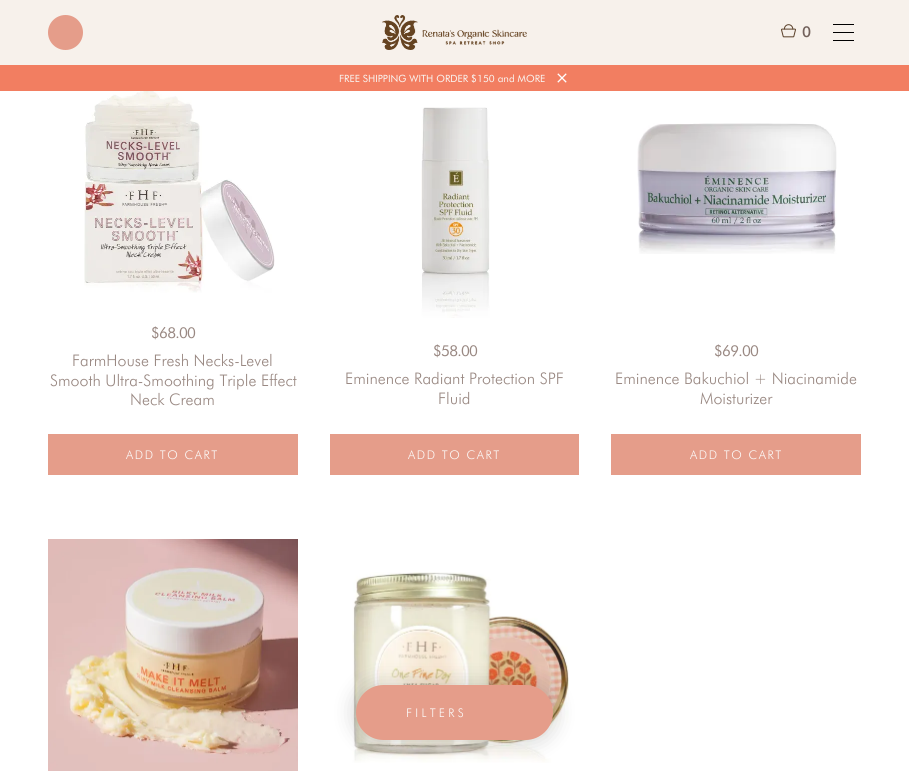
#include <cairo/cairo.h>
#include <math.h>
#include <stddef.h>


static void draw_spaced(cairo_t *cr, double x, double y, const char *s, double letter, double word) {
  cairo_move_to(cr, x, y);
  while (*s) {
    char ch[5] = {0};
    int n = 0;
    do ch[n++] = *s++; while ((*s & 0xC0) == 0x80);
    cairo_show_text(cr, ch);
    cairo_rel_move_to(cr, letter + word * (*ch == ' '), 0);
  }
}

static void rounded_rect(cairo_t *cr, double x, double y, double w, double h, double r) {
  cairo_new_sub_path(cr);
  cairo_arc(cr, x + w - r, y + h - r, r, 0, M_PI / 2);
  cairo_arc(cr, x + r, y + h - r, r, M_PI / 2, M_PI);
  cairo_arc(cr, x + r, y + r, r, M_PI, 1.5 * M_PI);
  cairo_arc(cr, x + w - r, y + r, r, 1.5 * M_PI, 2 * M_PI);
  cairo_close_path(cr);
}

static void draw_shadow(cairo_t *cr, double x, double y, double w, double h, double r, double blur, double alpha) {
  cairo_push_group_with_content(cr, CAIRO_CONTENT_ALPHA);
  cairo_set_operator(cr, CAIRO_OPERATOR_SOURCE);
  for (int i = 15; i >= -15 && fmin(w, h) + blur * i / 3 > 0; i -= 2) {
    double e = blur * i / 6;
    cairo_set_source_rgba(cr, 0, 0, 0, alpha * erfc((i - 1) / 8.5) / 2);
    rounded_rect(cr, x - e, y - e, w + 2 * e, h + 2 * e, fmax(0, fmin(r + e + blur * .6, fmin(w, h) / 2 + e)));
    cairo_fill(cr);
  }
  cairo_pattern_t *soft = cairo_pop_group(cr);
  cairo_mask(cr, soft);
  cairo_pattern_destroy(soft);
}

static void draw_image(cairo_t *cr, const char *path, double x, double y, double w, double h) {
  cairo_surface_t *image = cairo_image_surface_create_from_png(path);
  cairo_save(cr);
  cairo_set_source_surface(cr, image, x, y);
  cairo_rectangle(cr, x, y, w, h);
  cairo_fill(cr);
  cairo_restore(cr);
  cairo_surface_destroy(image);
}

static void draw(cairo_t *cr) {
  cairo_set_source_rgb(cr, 1, 1, 1);
  cairo_paint(cr);
  cairo_set_source_rgb(cr, 247 / 255.0, 241 / 255.0, 235 / 255.0);
  cairo_rectangle(cr, 0, 0, 909, 65);
  cairo_fill(cr);
  cairo_set_source_rgb(cr, 229 / 255.0, 157 / 255.0, 138 / 255.0);
  cairo_arc(cr, 65.5, 32.5, 17.5, 0, 2 * M_PI);
  cairo_fill(cr);
  draw_image(cr, "images/1.png", 382, 15, 145, 35);
  draw_image(cr, "images/2.png", 781, 24, 15, 14);
  cairo_set_source_rgb(cr, 0, 0, 0);
  cairo_rectangle(cr, 833, 24, 21, 1);
  cairo_fill(cr);
  cairo_rectangle(cr, 833, 32, 21, 1);
  cairo_fill(cr);
  cairo_rectangle(cr, 833, 40, 21, 1);
  cairo_fill(cr);
  cairo_set_source_rgb(cr, 242 / 255.0, 126 / 255.0, 97 / 255.0);
  cairo_rectangle(cr, 0, 65, 909, 26);
  cairo_fill(cr);
  draw_image(cr, "images/3.png", 557, 73, 10, 10);
  draw_image(cr, "images/4.png", 84, 91, 191, 202);
  cairo_set_source_rgb(cr, 229 / 255.0, 157 / 255.0, 138 / 255.0);
  cairo_rectangle(cr, 48, 434, 250, 41);
  cairo_fill(cr);
  draw_image(cr, "images/5.png", 421, 107, 69, 211);
  cairo_rectangle(cr, 330, 434, 249, 41);
  cairo_fill(cr);
  draw_image(cr, "images/6.png", 637, 123, 200, 131);
  cairo_rectangle(cr, 611, 434, 250, 41);
  cairo_fill(cr);
  draw_image(cr, "images/7.png", 48, 539, 250, 232);
  draw_image(cr, "images/8.png", 352, 572, 217, 191);
  cairo_set_source_rgb(cr, 0, 0, 0);
  draw_shadow(cr, 352, 681, 205, 63, 31.5, 10, 0.14);
  cairo_set_source_rgb(cr, 229 / 255.0, 157 / 255.0, 138 / 255.0);
  rounded_rect(cr, 356, 685, 197, 55, 27.5);
  cairo_fill(cr);
  cairo_select_font_face(cr, "Futura Medium", CAIRO_FONT_SLANT_NORMAL, CAIRO_FONT_WEIGHT_NORMAL);
  cairo_set_font_size(cr, 15);
  cairo_set_source_rgb(cr, 115 / 255.0, 98 / 255.0, 92 / 255.0);
  cairo_move_to(cr, 802, 37);
  cairo_show_text(cr, "0");
  cairo_select_font_face(cr, "Futura", CAIRO_FONT_SLANT_NORMAL, CAIRO_FONT_WEIGHT_NORMAL);
  cairo_set_font_size(cr, 10);
  cairo_set_source_rgb(cr, 249 / 255.0, 247 / 255.0, 244 / 255.0);
  cairo_move_to(cr, 339, 82);
  cairo_show_text(cr, "FREE SHIPPING WITH ORDER $150 and MORE");
  cairo_set_font_size(cr, 15);
  cairo_set_source_rgb(cr, 153 / 255.0, 136 / 255.0, 130 / 255.0);
  draw_spaced(cr, 151, 338, "$68.00", -0.75, 0);
  cairo_select_font_face(cr, "Futura Light", CAIRO_FONT_SLANT_NORMAL, CAIRO_FONT_WEIGHT_NORMAL);
  cairo_set_font_size(cr, 16);
  cairo_move_to(cr, 72, 366);
  cairo_show_text(cr, "FarmHouse Fresh Necks-Level");
  cairo_move_to(cr, 50, 386);
  cairo_show_text(cr, "Smooth Ultra-Smoothing Triple Effect");
  cairo_move_to(cr, 130, 405);
  cairo_show_text(cr, "Neck Cream");
  cairo_set_font_size(cr, 12);
  cairo_set_source_rgb(cr, 252 / 255.0, 251 / 255.0, 250 / 255.0);
  draw_spaced(cr, 126, 459, "ADD TO CART", 1.6, 0);
  cairo_select_font_face(cr, "Futura", CAIRO_FONT_SLANT_NORMAL, CAIRO_FONT_WEIGHT_NORMAL);
  cairo_set_font_size(cr, 15);
  cairo_set_source_rgb(cr, 153 / 255.0, 136 / 255.0, 130 / 255.0);
  draw_spaced(cr, 433, 356, "$58.00", -0.75, 0);
  cairo_select_font_face(cr, "Futura Light", CAIRO_FONT_SLANT_NORMAL, CAIRO_FONT_WEIGHT_NORMAL);
  cairo_set_font_size(cr, 16);
  cairo_move_to(cr, 345, 384);
  cairo_show_text(cr, "Eminence Radiant Protection SPF");
  cairo_move_to(cr, 438, 404);
  cairo_show_text(cr, "Fluid");
  cairo_set_font_size(cr, 12);
  cairo_set_source_rgb(cr, 252 / 255.0, 251 / 255.0, 250 / 255.0);
  draw_spaced(cr, 408, 459, "ADD TO CART", 1.6, 0);
  cairo_select_font_face(cr, "Futura", CAIRO_FONT_SLANT_NORMAL, CAIRO_FONT_WEIGHT_NORMAL);
  cairo_set_font_size(cr, 15);
  cairo_set_source_rgb(cr, 153 / 255.0, 136 / 255.0, 130 / 255.0);
  draw_spaced(cr, 714, 356, "$69.00", -0.75, 0);
  cairo_select_font_face(cr, "Futura Light", CAIRO_FONT_SLANT_NORMAL, CAIRO_FONT_WEIGHT_NORMAL);
  cairo_set_font_size(cr, 16);
  cairo_move_to(cr, 615, 384);
  cairo_show_text(cr, "Eminence Bakuchiol + Niacinamide");
  cairo_move_to(cr, 700, 404);
  cairo_show_text(cr, "Moisturizer");
  cairo_set_font_size(cr, 12);
  cairo_set_source_rgb(cr, 252 / 255.0, 251 / 255.0, 250 / 255.0);
  draw_spaced(cr, 690, 459, "ADD TO CART", 1.6, 0);
  draw_spaced(cr, 406, 717, "FILTERS", 3.25, 0);
}

int main(void) {
  cairo_surface_t *surface = cairo_image_surface_create(CAIRO_FORMAT_RGB24, 909, 772);
  cairo_t *cr = cairo_create(surface);
  cairo_font_options_t *options = cairo_font_options_create();
  cairo_font_options_set_hint_metrics(options, CAIRO_HINT_METRICS_OFF);
  cairo_font_options_set_hint_style(options, CAIRO_HINT_STYLE_NONE);
  cairo_set_font_options(cr, options);
  cairo_set_miter_limit(cr, 4);
  draw(cr);
  cairo_surface_write_to_png(surface, "out.png");
  cairo_font_options_destroy(options);
  cairo_destroy(cr);
  cairo_surface_destroy(surface);
  return 0;
}
